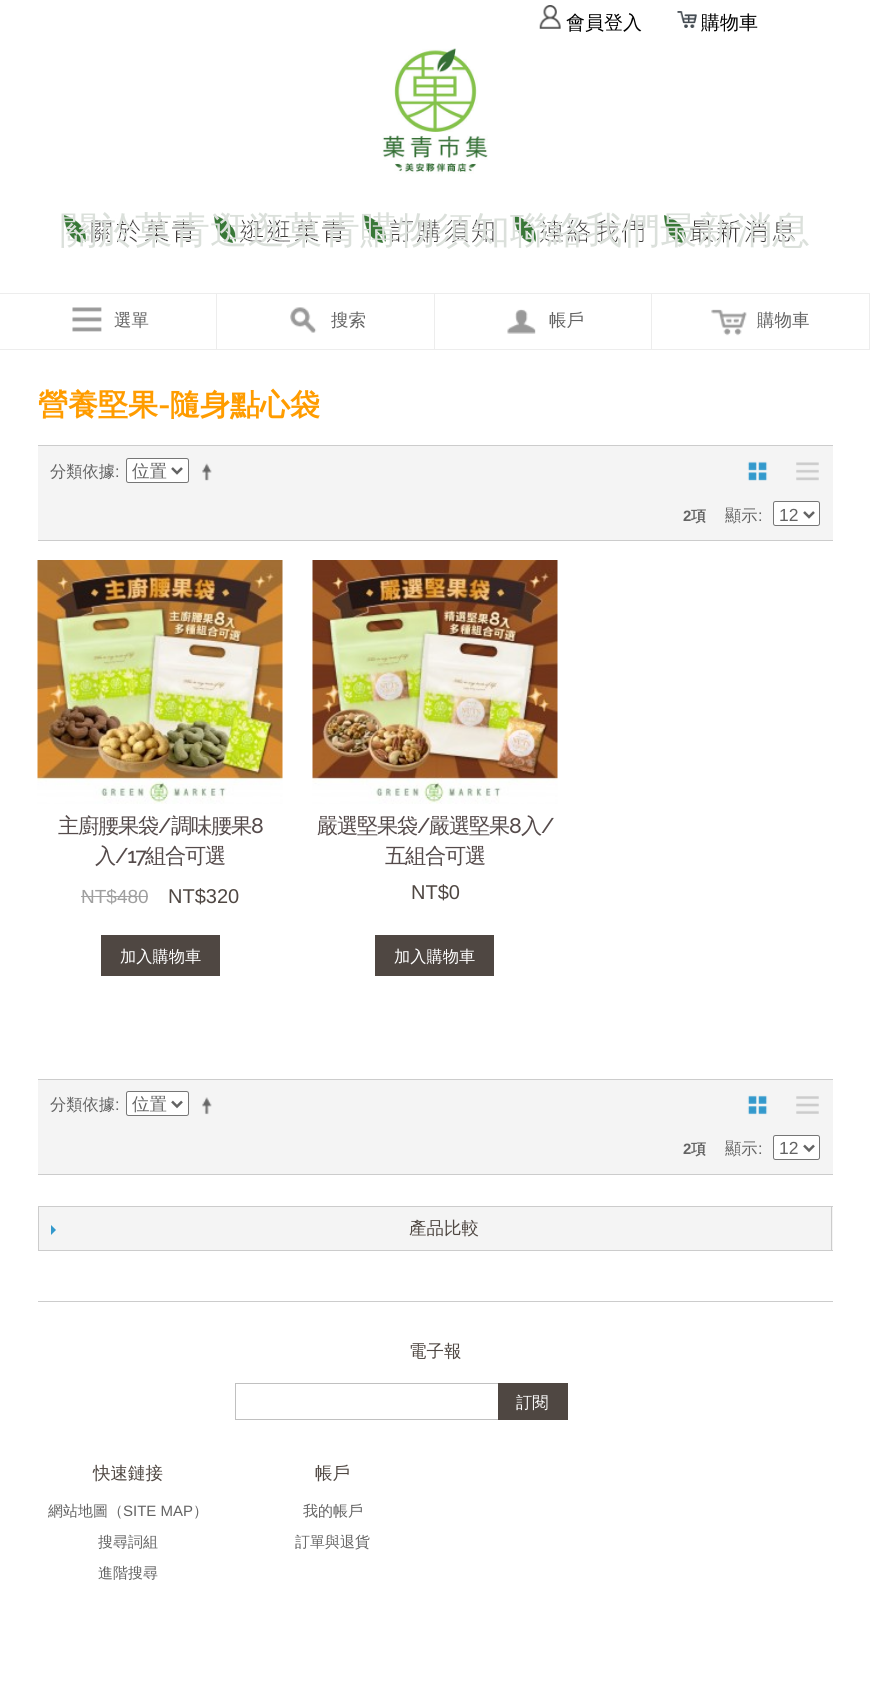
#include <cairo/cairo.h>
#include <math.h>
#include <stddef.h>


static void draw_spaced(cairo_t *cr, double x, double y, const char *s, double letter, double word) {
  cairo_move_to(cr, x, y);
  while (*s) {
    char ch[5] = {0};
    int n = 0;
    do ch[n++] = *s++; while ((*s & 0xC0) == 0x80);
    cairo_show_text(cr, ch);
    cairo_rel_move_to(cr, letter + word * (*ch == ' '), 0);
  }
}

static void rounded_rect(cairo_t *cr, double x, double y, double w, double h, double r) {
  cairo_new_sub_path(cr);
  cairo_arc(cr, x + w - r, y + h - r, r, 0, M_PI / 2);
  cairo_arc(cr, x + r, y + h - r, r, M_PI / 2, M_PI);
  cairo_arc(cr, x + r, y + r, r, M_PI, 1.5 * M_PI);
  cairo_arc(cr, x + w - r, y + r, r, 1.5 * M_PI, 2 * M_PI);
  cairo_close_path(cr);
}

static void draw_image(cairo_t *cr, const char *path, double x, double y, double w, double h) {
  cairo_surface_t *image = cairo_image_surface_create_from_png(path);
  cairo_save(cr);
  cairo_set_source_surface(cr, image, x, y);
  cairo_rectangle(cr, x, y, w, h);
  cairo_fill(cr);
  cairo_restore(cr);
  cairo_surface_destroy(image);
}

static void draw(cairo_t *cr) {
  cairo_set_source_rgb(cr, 1, 1, 1);
  cairo_paint(cr);
  draw_image(cr, "images/1.png", 539, 5, 22, 24);
  draw_image(cr, "images/2.png", 677, 11, 20, 17);
  draw_image(cr, "images/3.png", 382, 48, 106, 126);
  draw_image(cr, "images/4.png", 64, 215, 131, 28);
  draw_image(cr, "images/5.png", 214, 215, 131, 28);
  draw_image(cr, "images/6.png", 364, 215, 130, 28);
  draw_image(cr, "images/7.png", 514, 215, 130, 28);
  draw_image(cr, "images/8.png", 664, 215, 131, 28);
  cairo_set_source_rgb(cr, 237 / 255.0, 237 / 255.0, 237 / 255.0);
  cairo_rectangle(cr, 0, 293, 870, 1);
  cairo_fill(cr);
  cairo_rectangle(cr, 0, 349, 870, 1);
  cairo_fill(cr);
  cairo_rectangle(cr, 216, 294, 1, 55);
  cairo_fill(cr);
  draw_image(cr, "images/9.png", 72, 307, 30, 25);
  cairo_rectangle(cr, 434, 294, 1, 55);
  cairo_fill(cr);
  draw_image(cr, "images/10.png", 290, 307, 27, 26);
  cairo_rectangle(cr, 651, 294, 1, 55);
  cairo_fill(cr);
  draw_image(cr, "images/11.png", 507, 309, 29, 25);
  cairo_rectangle(cr, 869, 294, 1, 55);
  cairo_fill(cr);
  draw_image(cr, "images/12.png", 711, 309, 36, 27);
  cairo_set_source_rgb(cr, 244 / 255.0, 244 / 255.0, 244 / 255.0);
  cairo_rectangle(cr, 38, 446, 795, 94);
  cairo_fill(cr);
  cairo_set_source_rgb(cr, 204 / 255.0, 204 / 255.0, 204 / 255.0);
  cairo_rectangle(cr, 38, 445, 795, 1);
  cairo_fill(cr);
  cairo_rectangle(cr, 38, 540, 795, 1);
  cairo_fill(cr);
  cairo_set_source_rgb(cr, 1, 1, 1);
  rounded_rect(cr, 126.5, 458.5, 62, 24, 2);
  cairo_fill_preserve(cr);
  cairo_set_source_rgb(cr, 118 / 255.0, 118 / 255.0, 118 / 255.0);
  cairo_set_line_width(cr, 1);
  cairo_stroke(cr);
  cairo_new_path(cr);
  cairo_move_to(cr, 172, 468);
  cairo_line_to(cr, 177, 473);
  cairo_line_to(cr, 182, 468);
  cairo_set_source_rgb(cr, 99 / 255.0, 99 / 255.0, 99 / 255.0);
  cairo_set_line_width(cr, 2.5);
  cairo_stroke(cr);
  draw_image(cr, "images/13.png", 202, 463, 10, 18);
  draw_image(cr, "images/14.png", 747, 461, 21, 20);
  draw_image(cr, "images/15.png", 796, 462, 23, 19);
  cairo_set_source_rgb(cr, 1, 1, 1);
  rounded_rect(cr, 773.5, 501.5, 46, 24, 2);
  cairo_fill_preserve(cr);
  cairo_set_source_rgb(cr, 118 / 255.0, 118 / 255.0, 118 / 255.0);
  cairo_set_line_width(cr, 1);
  cairo_stroke(cr);
  cairo_new_path(cr);
  cairo_move_to(cr, 804, 512);
  cairo_line_to(cr, 809, 517);
  cairo_line_to(cr, 814, 512);
  cairo_set_source_rgb(cr, 99 / 255.0, 99 / 255.0, 99 / 255.0);
  cairo_set_line_width(cr, 2.5);
  cairo_stroke(cr);
  draw_image(cr, "images/16.png", 37, 560, 246, 244);
  cairo_set_source_rgb(cr, 160 / 255.0, 160 / 255.0, 160 / 255.0);
  cairo_rectangle(cr, 81, 896, 67, 1);
  cairo_fill(cr);
  cairo_set_source_rgb(cr, 79 / 255.0, 71 / 255.0, 66 / 255.0);
  cairo_rectangle(cr, 101, 935, 119, 41);
  cairo_fill(cr);
  draw_image(cr, "images/17.png", 312, 560, 246, 244);
  cairo_rectangle(cr, 375, 935, 119, 41);
  cairo_fill(cr);
  cairo_set_source_rgb(cr, 244 / 255.0, 244 / 255.0, 244 / 255.0);
  cairo_rectangle(cr, 38, 1080, 795, 94);
  cairo_fill(cr);
  cairo_set_source_rgb(cr, 204 / 255.0, 204 / 255.0, 204 / 255.0);
  cairo_rectangle(cr, 38, 1079, 795, 1);
  cairo_fill(cr);
  cairo_rectangle(cr, 38, 1174, 795, 1);
  cairo_fill(cr);
  cairo_set_source_rgb(cr, 1, 1, 1);
  rounded_rect(cr, 126.5, 1091.5, 62, 24, 2);
  cairo_fill_preserve(cr);
  cairo_set_source_rgb(cr, 118 / 255.0, 118 / 255.0, 118 / 255.0);
  cairo_set_line_width(cr, 1);
  cairo_stroke(cr);
  cairo_new_path(cr);
  cairo_move_to(cr, 172, 1101.5);
  cairo_line_to(cr, 177, 1106.5);
  cairo_line_to(cr, 182, 1101.5);
  cairo_set_source_rgb(cr, 99 / 255.0, 99 / 255.0, 99 / 255.0);
  cairo_set_line_width(cr, 2.5);
  cairo_stroke(cr);
  draw_image(cr, "images/18.png", 202, 1097, 10, 18);
  draw_image(cr, "images/19.png", 747, 1095, 21, 20);
  draw_image(cr, "images/20.png", 796, 1096, 23, 18);
  cairo_set_source_rgb(cr, 1, 1, 1);
  rounded_rect(cr, 773.5, 1135.5, 46, 24, 2);
  cairo_fill_preserve(cr);
  cairo_set_source_rgb(cr, 118 / 255.0, 118 / 255.0, 118 / 255.0);
  cairo_set_line_width(cr, 1);
  cairo_stroke(cr);
  cairo_new_path(cr);
  cairo_move_to(cr, 804, 1145.5);
  cairo_line_to(cr, 809, 1150.5);
  cairo_line_to(cr, 814, 1145.5);
  cairo_set_source_rgb(cr, 99 / 255.0, 99 / 255.0, 99 / 255.0);
  cairo_set_line_width(cr, 2.5);
  cairo_stroke(cr);
  cairo_set_source_rgb(cr, 204 / 255.0, 204 / 255.0, 204 / 255.0);
  cairo_rectangle(cr, 38, 1250, 795, 1);
  cairo_fill(cr);
  cairo_set_source_rgb(cr, 244 / 255.0, 244 / 255.0, 244 / 255.0);
  cairo_rectangle(cr, 39, 1207, 794, 43);
  cairo_fill(cr);
  cairo_set_source_rgb(cr, 204 / 255.0, 204 / 255.0, 204 / 255.0);
  cairo_rectangle(cr, 38, 1206, 795, 1);
  cairo_fill(cr);
  cairo_rectangle(cr, 831, 1206, 1, 44);
  cairo_fill(cr);
  cairo_rectangle(cr, 38, 1206, 1, 44);
  cairo_fill(cr);
  cairo_set_source_rgb(cr, 51 / 255.0, 153 / 255.0, 204 / 255.0);
  cairo_new_path(cr);
  cairo_move_to(cr, 51, 1235);
  cairo_line_to(cr, 51, 1225);
  cairo_line_to(cr, 56, 1230);
  cairo_close_path(cr);
  cairo_fill(cr);
  cairo_set_source_rgb(cr, 204 / 255.0, 204 / 255.0, 204 / 255.0);
  cairo_rectangle(cr, 38, 1301, 795, 1);
  cairo_fill(cr);
  cairo_set_source_rgb(cr, 192 / 255.0, 192 / 255.0, 192 / 255.0);
  cairo_rectangle(cr, 235, 1383, 263, 1);
  cairo_fill(cr);
  cairo_rectangle(cr, 235, 1419, 263, 1);
  cairo_fill(cr);
  cairo_rectangle(cr, 235, 1383, 1, 37);
  cairo_fill(cr);
  cairo_set_source_rgb(cr, 79 / 255.0, 71 / 255.0, 66 / 255.0);
  cairo_rectangle(cr, 498, 1383, 70, 37);
  cairo_fill(cr);
  cairo_select_font_face(cr, "WenQuanYi Zen Hei Medium", CAIRO_FONT_SLANT_NORMAL, CAIRO_FONT_WEIGHT_NORMAL);
  cairo_set_font_size(cr, 19);
  cairo_set_source_rgb(cr, 0, 0, 0);
  cairo_move_to(cr, 566, 29);
  cairo_show_text(cr, "會員登入");
  cairo_move_to(cr, 701, 29);
  cairo_show_text(cr, "購物車");
  cairo_set_font_size(cr, 37.5);
  cairo_set_source_rgb(cr, 219 / 255.0, 224 / 255.0, 219 / 255.0);
  cairo_move_to(cr, 60, 243);
  cairo_show_text(cr, "關於菓青");
  cairo_move_to(cr, 210, 243);
  cairo_show_text(cr, "逛逛菓青");
  cairo_move_to(cr, 360, 243);
  cairo_show_text(cr, "購物須知");
  cairo_move_to(cr, 510, 243);
  cairo_show_text(cr, "聯絡我們");
  cairo_move_to(cr, 660, 243);
  cairo_show_text(cr, "最新消息");
  cairo_set_font_size(cr, 17.5);
  cairo_set_source_rgb(cr, 99 / 255.0, 99 / 255.0, 99 / 255.0);
  cairo_move_to(cr, 114, 326);
  cairo_show_text(cr, "選單");
  cairo_move_to(cr, 331, 326);
  cairo_show_text(cr, "搜索");
  cairo_move_to(cr, 549, 326);
  cairo_show_text(cr, "帳戶");
  cairo_move_to(cr, 757, 326);
  cairo_show_text(cr, "購物車");
  cairo_select_font_face(cr, "WenQuanYi Zen Hei", CAIRO_FONT_SLANT_NORMAL, CAIRO_FONT_WEIGHT_BOLD);
  cairo_set_font_size(cr, 30);
  cairo_set_source_rgb(cr, 1, 156 / 255.0, 0);
  cairo_move_to(cr, 38, 415);
  cairo_show_text(cr, "營養堅果");
  cairo_select_font_face(cr, "Raleway SemiBold", CAIRO_FONT_SLANT_NORMAL, CAIRO_FONT_WEIGHT_NORMAL);
  cairo_move_to(cr, 158, 415);
  cairo_show_text(cr, "-");
  cairo_select_font_face(cr, "WenQuanYi Zen Hei", CAIRO_FONT_SLANT_NORMAL, CAIRO_FONT_WEIGHT_BOLD);
  cairo_move_to(cr, 170, 415);
  cairo_show_text(cr, "隨身點心袋");
  cairo_select_font_face(cr, "WenQuanYi Zen Hei Medium", CAIRO_FONT_SLANT_NORMAL, CAIRO_FONT_WEIGHT_NORMAL);
  cairo_set_font_size(cr, 16.25);
  cairo_set_source_rgb(cr, 99 / 255.0, 99 / 255.0, 99 / 255.0);
  cairo_move_to(cr, 50, 477);
  cairo_show_text(cr, "分類依據");
  cairo_select_font_face(cr, "Liberation Sans", CAIRO_FONT_SLANT_NORMAL, CAIRO_FONT_WEIGHT_NORMAL);
  cairo_move_to(cr, 115, 477);
  cairo_show_text(cr, ":");
  cairo_select_font_face(cr, "WenQuanYi Zen Hei Medium", CAIRO_FONT_SLANT_NORMAL, CAIRO_FONT_WEIGHT_NORMAL);
  cairo_set_font_size(cr, 17.5);
  cairo_move_to(cr, 132, 477);
  cairo_show_text(cr, "位置");
  cairo_select_font_face(cr, "Liberation Sans", CAIRO_FONT_SLANT_NORMAL, CAIRO_FONT_WEIGHT_BOLD);
  cairo_set_font_size(cr, 15);
  cairo_move_to(cr, 683, 521);
  cairo_show_text(cr, "2");
  cairo_select_font_face(cr, "WenQuanYi Zen Hei", CAIRO_FONT_SLANT_NORMAL, CAIRO_FONT_WEIGHT_BOLD);
  cairo_move_to(cr, 691, 521);
  cairo_show_text(cr, "項");
  cairo_select_font_face(cr, "WenQuanYi Zen Hei Medium", CAIRO_FONT_SLANT_NORMAL, CAIRO_FONT_WEIGHT_NORMAL);
  cairo_set_font_size(cr, 16.25);
  cairo_move_to(cr, 725, 521);
  cairo_show_text(cr, "顯示");
  cairo_select_font_face(cr, "Liberation Sans", CAIRO_FONT_SLANT_NORMAL, CAIRO_FONT_WEIGHT_NORMAL);
  cairo_move_to(cr, 758, 521);
  cairo_show_text(cr, ":");
  cairo_set_font_size(cr, 17.5);
  cairo_move_to(cr, 779, 521);
  cairo_show_text(cr, "12");
  cairo_select_font_face(cr, "WenQuanYi Zen Hei Medium", CAIRO_FONT_SLANT_NORMAL, CAIRO_FONT_WEIGHT_NORMAL);
  cairo_set_font_size(cr, 21.25);
  cairo_set_source_rgb(cr, 85 / 255.0, 75 / 255.0, 75 / 255.0);
  draw_spaced(cr, 58, 833, "主廚腰果袋", -1.25, 0);
  cairo_select_font_face(cr, "Raleway Medium", CAIRO_FONT_SLANT_NORMAL, CAIRO_FONT_WEIGHT_NORMAL);
  draw_spaced(cr, 158, 833, "/", -1.25, 0);
  cairo_select_font_face(cr, "WenQuanYi Zen Hei Medium", CAIRO_FONT_SLANT_NORMAL, CAIRO_FONT_WEIGHT_NORMAL);
  draw_spaced(cr, 171, 833, "調味腰果", -1.25, 0);
  cairo_select_font_face(cr, "Raleway Medium", CAIRO_FONT_SLANT_NORMAL, CAIRO_FONT_WEIGHT_NORMAL);
  draw_spaced(cr, 251, 833, "8", -1.25, 0);
  cairo_select_font_face(cr, "WenQuanYi Zen Hei Medium", CAIRO_FONT_SLANT_NORMAL, CAIRO_FONT_WEIGHT_NORMAL);
  draw_spaced(cr, 95, 863, "入", -1.25, 0);
  cairo_select_font_face(cr, "Raleway Medium", CAIRO_FONT_SLANT_NORMAL, CAIRO_FONT_WEIGHT_NORMAL);
  draw_spaced(cr, 115, 863, "/17", -1.25, 0);
  cairo_select_font_face(cr, "WenQuanYi Zen Hei Medium", CAIRO_FONT_SLANT_NORMAL, CAIRO_FONT_WEIGHT_NORMAL);
  draw_spaced(cr, 145, 863, "組合可選", -1.25, 0);
  cairo_select_font_face(cr, "Liberation Sans", CAIRO_FONT_SLANT_NORMAL, CAIRO_FONT_WEIGHT_NORMAL);
  cairo_set_font_size(cr, 19);
  cairo_set_source_rgb(cr, 160 / 255.0, 160 / 255.0, 160 / 255.0);
  cairo_move_to(cr, 81, 903);
  cairo_show_text(cr, "NT$480");
  cairo_set_font_size(cr, 20);
  cairo_set_source_rgb(cr, 79 / 255.0, 71 / 255.0, 66 / 255.0);
  cairo_move_to(cr, 168, 903);
  cairo_show_text(cr, "NT$320");
  cairo_select_font_face(cr, "WenQuanYi Zen Hei Medium", CAIRO_FONT_SLANT_NORMAL, CAIRO_FONT_WEIGHT_NORMAL);
  cairo_set_font_size(cr, 16.25);
  cairo_set_source_rgb(cr, 1, 1, 1);
  cairo_move_to(cr, 120, 962);
  cairo_show_text(cr, "加入購物車");
  cairo_set_font_size(cr, 21.25);
  cairo_set_source_rgb(cr, 85 / 255.0, 75 / 255.0, 75 / 255.0);
  draw_spaced(cr, 317, 833, "嚴選堅果袋", -1.25, 0);
  cairo_select_font_face(cr, "Raleway Medium", CAIRO_FONT_SLANT_NORMAL, CAIRO_FONT_WEIGHT_NORMAL);
  draw_spaced(cr, 417, 833, "/", -1.25, 0);
  cairo_select_font_face(cr, "WenQuanYi Zen Hei Medium", CAIRO_FONT_SLANT_NORMAL, CAIRO_FONT_WEIGHT_NORMAL);
  draw_spaced(cr, 429, 833, "嚴選堅果", -1.25, 0);
  cairo_select_font_face(cr, "Raleway Medium", CAIRO_FONT_SLANT_NORMAL, CAIRO_FONT_WEIGHT_NORMAL);
  draw_spaced(cr, 509, 833, "8", -1.25, 0);
  cairo_select_font_face(cr, "WenQuanYi Zen Hei Medium", CAIRO_FONT_SLANT_NORMAL, CAIRO_FONT_WEIGHT_NORMAL);
  draw_spaced(cr, 521, 833, "入", -1.25, 0);
  cairo_select_font_face(cr, "Raleway Medium", CAIRO_FONT_SLANT_NORMAL, CAIRO_FONT_WEIGHT_NORMAL);
  draw_spaced(cr, 541, 833, "/", -1.25, 0);
  cairo_select_font_face(cr, "WenQuanYi Zen Hei Medium", CAIRO_FONT_SLANT_NORMAL, CAIRO_FONT_WEIGHT_NORMAL);
  draw_spaced(cr, 385, 863, "五組合可選", -1.25, 0);
  cairo_select_font_face(cr, "Liberation Sans", CAIRO_FONT_SLANT_NORMAL, CAIRO_FONT_WEIGHT_NORMAL);
  cairo_set_font_size(cr, 20);
  cairo_set_source_rgb(cr, 79 / 255.0, 71 / 255.0, 66 / 255.0);
  cairo_move_to(cr, 411, 899);
  cairo_show_text(cr, "NT$0");
  cairo_select_font_face(cr, "WenQuanYi Zen Hei Medium", CAIRO_FONT_SLANT_NORMAL, CAIRO_FONT_WEIGHT_NORMAL);
  cairo_set_font_size(cr, 16.25);
  cairo_set_source_rgb(cr, 1, 1, 1);
  cairo_move_to(cr, 394, 962);
  cairo_show_text(cr, "加入購物車");
  cairo_set_source_rgb(cr, 99 / 255.0, 99 / 255.0, 99 / 255.0);
  cairo_move_to(cr, 50, 1110);
  cairo_show_text(cr, "分類依據");
  cairo_select_font_face(cr, "Liberation Sans", CAIRO_FONT_SLANT_NORMAL, CAIRO_FONT_WEIGHT_NORMAL);
  cairo_move_to(cr, 115, 1110);
  cairo_show_text(cr, ":");
  cairo_select_font_face(cr, "WenQuanYi Zen Hei Medium", CAIRO_FONT_SLANT_NORMAL, CAIRO_FONT_WEIGHT_NORMAL);
  cairo_set_font_size(cr, 17.5);
  cairo_move_to(cr, 132, 1110);
  cairo_show_text(cr, "位置");
  cairo_select_font_face(cr, "Liberation Sans", CAIRO_FONT_SLANT_NORMAL, CAIRO_FONT_WEIGHT_BOLD);
  cairo_set_font_size(cr, 15);
  cairo_move_to(cr, 683, 1154);
  cairo_show_text(cr, "2");
  cairo_select_font_face(cr, "WenQuanYi Zen Hei", CAIRO_FONT_SLANT_NORMAL, CAIRO_FONT_WEIGHT_BOLD);
  cairo_move_to(cr, 691, 1154);
  cairo_show_text(cr, "項");
  cairo_select_font_face(cr, "WenQuanYi Zen Hei Medium", CAIRO_FONT_SLANT_NORMAL, CAIRO_FONT_WEIGHT_NORMAL);
  cairo_set_font_size(cr, 16.25);
  cairo_move_to(cr, 725, 1154);
  cairo_show_text(cr, "顯示");
  cairo_select_font_face(cr, "Liberation Sans", CAIRO_FONT_SLANT_NORMAL, CAIRO_FONT_WEIGHT_NORMAL);
  cairo_move_to(cr, 758, 1154);
  cairo_show_text(cr, ":");
  cairo_set_font_size(cr, 17.5);
  cairo_move_to(cr, 779, 1154);
  cairo_show_text(cr, "12");
  cairo_select_font_face(cr, "WenQuanYi Zen Hei Medium", CAIRO_FONT_SLANT_NORMAL, CAIRO_FONT_WEIGHT_NORMAL);
  cairo_set_source_rgb(cr, 79 / 255.0, 71 / 255.0, 66 / 255.0);
  cairo_move_to(cr, 409, 1234);
  cairo_show_text(cr, "產品比較");
  cairo_move_to(cr, 409, 1357);
  cairo_show_text(cr, "電子報");
  cairo_set_font_size(cr, 16.25);
  cairo_set_source_rgb(cr, 1, 1, 1);
  cairo_move_to(cr, 516, 1408);
  cairo_show_text(cr, "訂閱");
  cairo_set_font_size(cr, 17.5);
  cairo_set_source_rgb(cr, 79 / 255.0, 71 / 255.0, 66 / 255.0);
  cairo_move_to(cr, 93, 1479);
  cairo_show_text(cr, "快速鏈接");
  cairo_set_font_size(cr, 15);
  cairo_set_source_rgb(cr, 99 / 255.0, 99 / 255.0, 99 / 255.0);
  cairo_move_to(cr, 48, 1516);
  cairo_show_text(cr, "網站地圖（");
  cairo_select_font_face(cr, "Liberation Sans", CAIRO_FONT_SLANT_NORMAL, CAIRO_FONT_WEIGHT_NORMAL);
  cairo_move_to(cr, 123, 1516);
  cairo_show_text(cr, "SITE MAP");
  cairo_select_font_face(cr, "WenQuanYi Zen Hei Medium", CAIRO_FONT_SLANT_NORMAL, CAIRO_FONT_WEIGHT_NORMAL);
  cairo_move_to(cr, 193, 1516);
  cairo_show_text(cr, "）");
  cairo_move_to(cr, 98, 1547);
  cairo_show_text(cr, "搜尋詞組");
  cairo_move_to(cr, 98, 1578);
  cairo_show_text(cr, "進階搜尋");
  cairo_set_font_size(cr, 17.5);
  cairo_set_source_rgb(cr, 79 / 255.0, 71 / 255.0, 66 / 255.0);
  cairo_move_to(cr, 315, 1479);
  cairo_show_text(cr, "帳戶");
  cairo_set_font_size(cr, 15);
  cairo_set_source_rgb(cr, 99 / 255.0, 99 / 255.0, 99 / 255.0);
  cairo_move_to(cr, 303, 1516);
  cairo_show_text(cr, "我的帳戶");
  cairo_move_to(cr, 295, 1547);
  cairo_show_text(cr, "訂單與退貨");
}

int main(void) {
  cairo_surface_t *surface = cairo_image_surface_create(CAIRO_FORMAT_RGB24, 870, 1701);
  cairo_t *cr = cairo_create(surface);
  cairo_font_options_t *options = cairo_font_options_create();
  cairo_font_options_set_hint_metrics(options, CAIRO_HINT_METRICS_OFF);
  cairo_font_options_set_hint_style(options, CAIRO_HINT_STYLE_NONE);
  cairo_set_font_options(cr, options);
  cairo_set_miter_limit(cr, 4);
  draw(cr);
  cairo_surface_write_to_png(surface, "out.png");
  cairo_font_options_destroy(options);
  cairo_destroy(cr);
  cairo_surface_destroy(surface);
  return 0;
}
